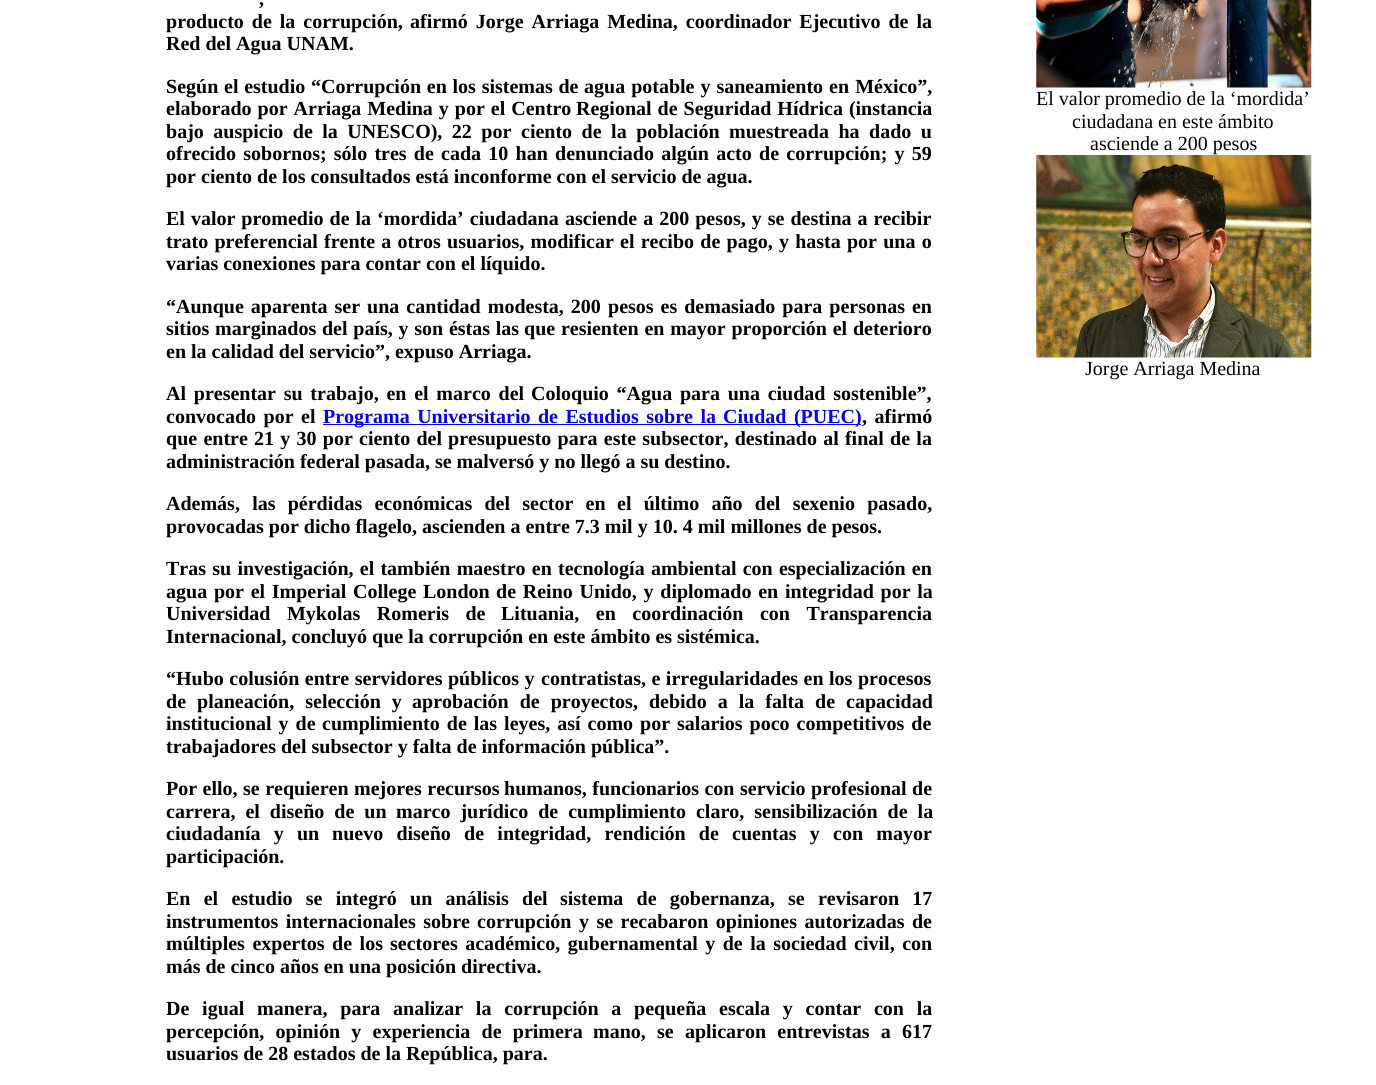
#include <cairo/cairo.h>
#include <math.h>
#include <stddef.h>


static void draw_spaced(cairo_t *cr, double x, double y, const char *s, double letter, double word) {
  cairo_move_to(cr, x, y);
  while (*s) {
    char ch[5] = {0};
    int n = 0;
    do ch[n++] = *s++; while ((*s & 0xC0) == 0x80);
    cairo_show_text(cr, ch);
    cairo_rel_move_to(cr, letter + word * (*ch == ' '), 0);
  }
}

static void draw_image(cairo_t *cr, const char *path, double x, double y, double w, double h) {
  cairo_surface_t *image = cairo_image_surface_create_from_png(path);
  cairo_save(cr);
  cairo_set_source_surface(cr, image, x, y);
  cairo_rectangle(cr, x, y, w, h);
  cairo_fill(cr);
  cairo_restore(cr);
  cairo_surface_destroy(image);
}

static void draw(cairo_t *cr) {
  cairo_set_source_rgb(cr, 1, 1, 1);
  cairo_paint(cr);
  cairo_set_source_rgb(cr, 0, 0, 238 / 255.0);
  cairo_rectangle(cr, 323, 424, 538, 1);
  cairo_fill(cr);
  draw_image(cr, "images/1.png", 1036, 0, 276, 88);
  draw_image(cr, "images/2.png", 1036, 155, 276, 203);
  cairo_select_font_face(cr, "Liberation Serif", CAIRO_FONT_SLANT_NORMAL, CAIRO_FONT_WEIGHT_BOLD);
  cairo_set_font_size(cr, 20);
  cairo_set_source_rgb(cr, 0, 0, 0);
  draw_spaced(cr, 259, 5, ",", 0, 1);
  draw_spaced(cr, 166, 28, "producto de la corrupción,", 0, 3);
  draw_spaced(cr, 410, 28, "afirmó Jorge Arriaga Medina, coordinador Ejecutivo de la", 0, 3);
  cairo_move_to(cr, 166, 50);
  cairo_show_text(cr, "Red del Agua UNAM.");
  draw_spaced(cr, 166, 93, "Según el estudio “Corrupción en los sistemas de", 0, 0.75);
  draw_spaced(cr, 584, 93, "agua potable y saneamiento en México”,", 0, 1);
  draw_spaced(cr, 166, 115, "elaborado por Arriaga Medina y por el Centro", 0, 1);
  draw_spaced(cr, 576, 115, "Regional de Seguridad Hídrica (instancia", 0, 1);
  draw_spaced(cr, 166, 138, "bajo auspicio de la UNESCO), 22 por", 0, 4.5);
  draw_spaced(cr, 521, 138, "ciento de la población muestreada ha dado u", 0, 4.5);
  draw_spaced(cr, 166, 160, "ofrecido sobornos; sólo tres de", 0, 2.25);
  draw_spaced(cr, 441, 160, "cada 10 han denunciado algún acto de corrupción; y 59", 0, 2.25);
  cairo_move_to(cr, 166, 183);
  cairo_show_text(cr, "por ciento de los consultados está inconforme con el servicio de agua.");
  draw_spaced(cr, 166, 225, "El valor promedio de la ‘mordida’ ciudadana", 0, 1);
  draw_spaced(cr, 565, 225, "asciende a 200 pesos, y se destina a recibir", 0, 1);
  draw_spaced(cr, 166, 248, "trato preferencial frente a otros", 0, 1.25);
  draw_spaced(cr, 447, 248, "usuarios, modificar el recibo de pago, y hasta por una o", 0, 1.25);
  cairo_move_to(cr, 166, 270);
  cairo_show_text(cr, "varias conexiones para contar con el líquido.");
  draw_spaced(cr, 166, 313, "“Aunque aparenta ser una cantidad modesta, 200", 0, 2);
  draw_spaced(cr, 608, 313, "pesos es demasiado para personas en", 0, 2);
  draw_spaced(cr, 166, 335, "sitios marginados del país, y son éstas las", 0, 0.75);
  draw_spaced(cr, 524, 335, "que resienten en mayor proporción el deterioro", 0, 0.75);
  cairo_move_to(cr, 166, 358);
  cairo_show_text(cr, "en la calidad del servicio”, expuso Arriaga.");
  draw_spaced(cr, 166, 400, "Al presentar su trabajo, en el marco del", 0, 2.75);
  draw_spaced(cr, 531, 400, "Coloquio “Agua para una ciudad sostenible”,", 0, 2.75);
  draw_spaced(cr, 166, 423, "convocado por el", 0, 2.5);
  cairo_set_source_rgb(cr, 0, 0, 238 / 255.0);
  draw_spaced(cr, 323, 423, "Programa Universitario de Estudios sobre la", 0, 2.5);
  draw_spaced(cr, 723, 423, "Ciudad (PUEC)", 0, 2.5);
  cairo_set_source_rgb(cr, 0, 0, 0);
  draw_spaced(cr, 862, 423, ", afirmó", 0, 2.5);
  draw_spaced(cr, 166, 445, "que entre 21 y 30 por ciento del", 0, 1.25);
  draw_spaced(cr, 448, 445, "presupuesto para este subsector, destinado al final de la", 0, 1.25);
  cairo_move_to(cr, 166, 468);
  cairo_show_text(cr, "administración federal pasada, se malversó y no llegó a su destino.");
  draw_spaced(cr, 166, 510, "Además, las pérdidas económicas del sector en", 0, 7.25);
  draw_spaced(cr, 617, 510, "el último año del sexenio pasado,", 0, 7.25);
  cairo_move_to(cr, 166, 533);
  cairo_show_text(cr, "provocadas por dicho flagelo, ascienden a entre 7.3 mil y 10. 4 mil millones de pesos.");
  draw_spaced(cr, 166, 575, "Tras su investigación, el también maestro en", 0, 1.25);
  draw_spaced(cr, 558, 575, "tecnología ambiental con especialización en", 0, 1.25);
  draw_spaced(cr, 166, 598, "agua por el Imperial College London", 0, 1.75);
  draw_spaced(cr, 496, 598, "de Reino Unido, y diplomado en integridad por la", 0, 1.75);
  draw_spaced(cr, 166, 620, "Universidad Mykolas Romeris de", 0, 11.5);
  draw_spaced(cr, 501, 620, "Lituania, en coordinación con Transparencia", 0, 11.5);
  cairo_move_to(cr, 166, 643);
  cairo_show_text(cr, "Internacional, concluyó que la corrupción en este ámbito es sistémica.");
  draw_spaced(cr, 166, 685, "“Hubo colusión entre servidores públicos y", 0, 0.5);
  draw_spaced(cr, 541, 685, "contratistas, e irregularidades en los procesos", 0, 0.5);
  draw_spaced(cr, 166, 708, "de planeación, selección y", 0, 6);
  draw_spaced(cr, 412, 708, "aprobación de proyectos, debido a la falta de capacidad", 0, 6);
  draw_spaced(cr, 166, 730, "institucional y de", 0, 2);
  draw_spaced(cr, 322, 730, "cumplimiento de las leyes, así como por salarios poco competitivos de", 0, 2);
  cairo_move_to(cr, 166, 753);
  cairo_show_text(cr, "trabajadores del subsector y falta de información pública”.");
  draw_spaced(cr, 166, 795, "Por ello, se requieren mejores recursos", 0, 0.5);
  draw_spaced(cr, 504, 795, "humanos, funcionarios con servicio profesional de", 0, 0.5);
  draw_spaced(cr, 166, 818, "carrera, el diseño de un", 0, 5);
  draw_spaced(cr, 396, 818, "marco jurídico de cumplimiento claro, sensibilización de la", 0, 5);
  draw_spaced(cr, 166, 840, "ciudadanía y un", 0, 8.25);
  draw_spaced(cr, 332, 840, "nuevo diseño de integridad, rendición de cuentas y con mayor", 0, 8.25);
  cairo_move_to(cr, 166, 863);
  cairo_show_text(cr, "participación.");
  draw_spaced(cr, 166, 905, "En el estudio se integró un análisis del", 0, 8.25);
  draw_spaced(cr, 560, 905, "sistema de gobernanza, se revisaron 17", 0, 8.25);
  draw_spaced(cr, 166, 928, "instrumentos internacionales sobre", 0, 2.5);
  draw_spaced(cr, 477, 928, "corrupción y se recabaron opiniones autorizadas de", 0, 2.5);
  draw_spaced(cr, 166, 950, "múltiples expertos de los", 0, 2.5);
  draw_spaced(cr, 390, 950, "sectores académico, gubernamental y de la sociedad civil, con", 0, 2.5);
  cairo_move_to(cr, 166, 973);
  cairo_show_text(cr, "más de cinco años en una posición directiva.");
  draw_spaced(cr, 166, 1015, "De igual manera, para analizar la corrupción a", 0, 7.75);
  draw_spaced(cr, 634, 1015, "pequeña escala y contar con la", 0, 7.75);
  draw_spaced(cr, 166, 1038, "percepción, opinión y experiencia de primera", 0, 6.25);
  draw_spaced(cr, 593, 1038, "mano, se aplicaron entrevistas a 617", 0, 6.25);
  cairo_move_to(cr, 166, 1060);
  cairo_show_text(cr, "usuarios de 28 estados de la República, para.");
  cairo_select_font_face(cr, "Liberation Serif", CAIRO_FONT_SLANT_NORMAL, CAIRO_FONT_WEIGHT_NORMAL);
  cairo_move_to(cr, 1036, 105);
  cairo_show_text(cr, "El valor promedio de la ‘mordida’");
  cairo_move_to(cr, 1072, 128);
  cairo_show_text(cr, "ciudadana en este ámbito");
  cairo_move_to(cr, 1090, 150);
  cairo_show_text(cr, "asciende a 200 pesos");
  cairo_move_to(cr, 1085, 375);
  cairo_show_text(cr, "Jorge Arriaga Medina");
}

int main(void) {
  cairo_surface_t *surface = cairo_image_surface_create(CAIRO_FORMAT_RGB24, 1376, 1085);
  cairo_t *cr = cairo_create(surface);
  cairo_font_options_t *options = cairo_font_options_create();
  cairo_font_options_set_hint_metrics(options, CAIRO_HINT_METRICS_OFF);
  cairo_font_options_set_hint_style(options, CAIRO_HINT_STYLE_NONE);
  cairo_set_font_options(cr, options);
  cairo_set_miter_limit(cr, 4);
  draw(cr);
  cairo_surface_write_to_png(surface, "out.png");
  cairo_font_options_destroy(options);
  cairo_destroy(cr);
  cairo_surface_destroy(surface);
  return 0;
}
